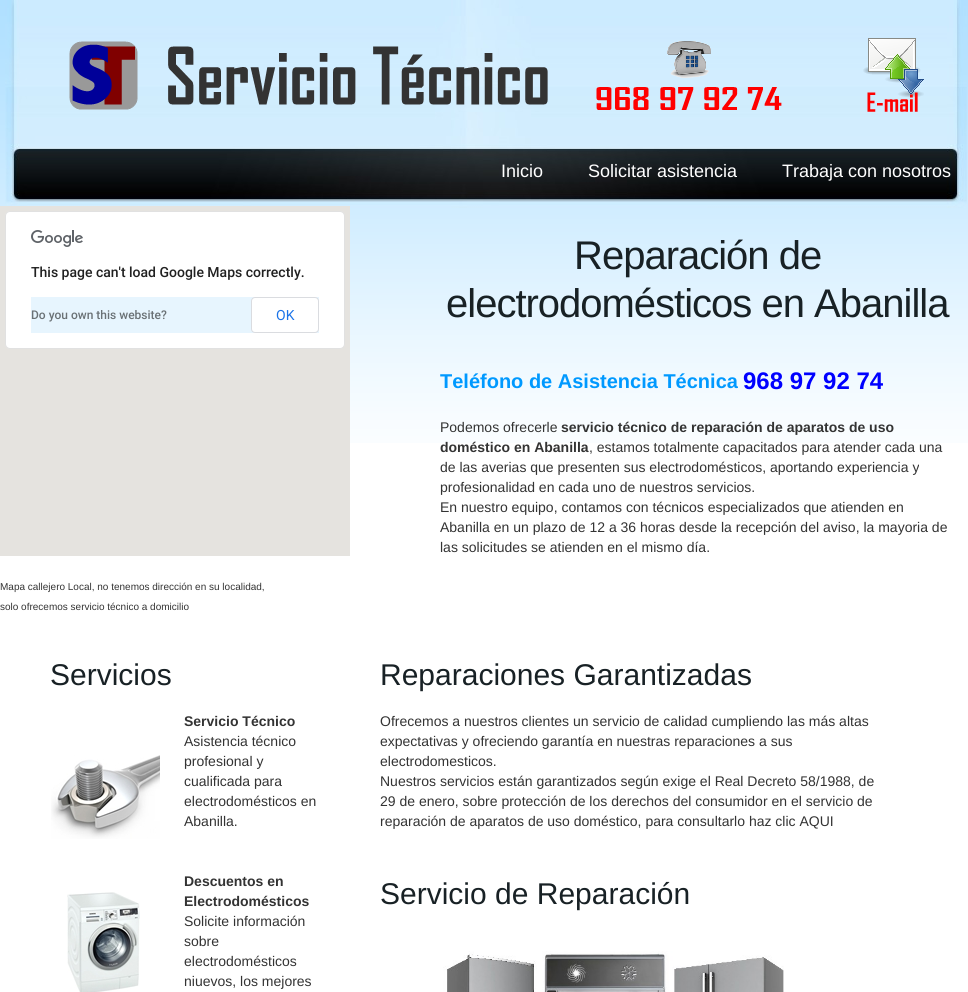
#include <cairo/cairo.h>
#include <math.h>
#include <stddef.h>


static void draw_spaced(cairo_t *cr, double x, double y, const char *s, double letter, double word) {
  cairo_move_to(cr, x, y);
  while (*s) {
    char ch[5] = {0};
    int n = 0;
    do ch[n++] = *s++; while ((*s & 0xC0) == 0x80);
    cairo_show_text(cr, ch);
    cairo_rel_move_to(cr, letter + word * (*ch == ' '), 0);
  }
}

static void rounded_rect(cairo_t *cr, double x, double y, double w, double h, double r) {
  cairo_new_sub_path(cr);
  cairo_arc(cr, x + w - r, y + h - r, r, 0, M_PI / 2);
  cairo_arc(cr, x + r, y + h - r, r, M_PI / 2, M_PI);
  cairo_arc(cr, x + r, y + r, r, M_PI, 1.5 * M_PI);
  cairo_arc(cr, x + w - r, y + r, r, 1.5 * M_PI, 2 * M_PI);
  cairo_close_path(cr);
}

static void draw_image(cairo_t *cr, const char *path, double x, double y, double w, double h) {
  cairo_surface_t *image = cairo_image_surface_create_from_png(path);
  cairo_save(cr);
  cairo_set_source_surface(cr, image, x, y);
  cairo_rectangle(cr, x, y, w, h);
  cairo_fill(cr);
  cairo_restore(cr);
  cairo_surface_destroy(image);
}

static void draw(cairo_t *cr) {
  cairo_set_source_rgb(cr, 1, 1, 1);
  cairo_paint(cr);
  draw_image(cr, "images/1.png", 0, 0, 968, 443);
  draw_image(cr, "images/2.png", 5, 0, 962, 208);
  draw_image(cr, "images/3.png", 69, 38, 855, 74);
  cairo_set_source_rgb(cr, 229 / 255.0, 227 / 255.0, 223 / 255.0);
  cairo_rectangle(cr, 0, 206, 350, 350);
  cairo_fill(cr);
  cairo_set_source_rgb(cr, 1, 1, 1);
  rounded_rect(cr, 5, 211, 340, 138, 5);
  cairo_fill(cr);
  rounded_rect(cr, 5.5, 211.5, 339, 137, 4.5);
  cairo_set_source_rgba(cr, 0, 0, 0, 0.12);
  cairo_set_line_width(cr, 1);
  cairo_stroke(cr);
  draw_image(cr, "images/4.png", 31, 230, 52, 17);
  cairo_set_source_rgb(cr, 231 / 255.0, 245 / 255.0, 254 / 255.0);
  cairo_rectangle(cr, 31, 297, 288, 36);
  cairo_fill(cr);
  cairo_set_source_rgb(cr, 1, 1, 1);
  rounded_rect(cr, 251.5, 297.5, 67, 35, 3.5);
  cairo_fill_preserve(cr);
  cairo_set_source_rgb(cr, 218 / 255.0, 220 / 255.0, 224 / 255.0);
  cairo_stroke(cr);
  draw_image(cr, "images/5.png", 51, 755, 109, 84);
  draw_image(cr, "images/6.png", 67, 892, 73, 100);
  draw_image(cr, "images/7.png", 443, 951, 341, 41);
  cairo_select_font_face(cr, "Liberation Sans", CAIRO_FONT_SLANT_NORMAL, CAIRO_FONT_WEIGHT_NORMAL);
  cairo_set_font_size(cr, 18);
  cairo_set_source_rgb(cr, 1, 1, 1);
  cairo_move_to(cr, 501, 177);
  cairo_show_text(cr, "Inicio");
  cairo_move_to(cr, 588, 177);
  cairo_show_text(cr, "Solicitar asistencia");
  cairo_move_to(cr, 782, 177);
  cairo_show_text(cr, "Trabaja con nosotros");
  cairo_select_font_face(cr, "Roboto Medium", CAIRO_FONT_SLANT_NORMAL, CAIRO_FONT_WEIGHT_NORMAL);
  cairo_set_font_size(cr, 14);
  cairo_set_source_rgb(cr, 33 / 255.0, 33 / 255.0, 33 / 255.0);
  cairo_move_to(cr, 31, 277);
  cairo_show_text(cr, "This page can't load Google Maps correctly.");
  cairo_set_font_size(cr, 12);
  cairo_set_source_rgb(cr, 106 / 255.0, 113 / 255.0, 117 / 255.0);
  cairo_move_to(cr, 31, 319);
  cairo_show_text(cr, "Do you own this website?");
  cairo_select_font_face(cr, "Roboto", CAIRO_FONT_SLANT_NORMAL, CAIRO_FONT_WEIGHT_NORMAL);
  cairo_set_font_size(cr, 14);
  cairo_set_source_rgb(cr, 26 / 255.0, 115 / 255.0, 232 / 255.0);
  cairo_move_to(cr, 276, 320);
  cairo_show_text(cr, "OK");
  cairo_select_font_face(cr, "Liberation Sans", CAIRO_FONT_SLANT_NORMAL, CAIRO_FONT_WEIGHT_NORMAL);
  cairo_set_font_size(cr, 40);
  cairo_set_source_rgb(cr, 24 / 255.0, 33 / 255.0, 37 / 255.0);
  draw_spaced(cr, 574, 269, "Reparación de", -1, 0);
  draw_spaced(cr, 446, 317, "electrodomésticos en Abanilla", -1, 0);
  cairo_select_font_face(cr, "Liberation Sans", CAIRO_FONT_SLANT_NORMAL, CAIRO_FONT_WEIGHT_BOLD);
  cairo_set_font_size(cr, 20);
  cairo_set_source_rgb(cr, 0, 153 / 255.0, 1);
  cairo_move_to(cr, 440, 388);
  cairo_show_text(cr, "Teléfono de Asistencia Técnica");
  cairo_set_font_size(cr, 24);
  cairo_set_source_rgb(cr, 0, 0, 1);
  cairo_move_to(cr, 743, 389);
  cairo_show_text(cr, "968 97 92 74");
  cairo_select_font_face(cr, "Liberation Sans", CAIRO_FONT_SLANT_NORMAL, CAIRO_FONT_WEIGHT_NORMAL);
  cairo_set_font_size(cr, 14);
  cairo_set_source_rgb(cr, 51 / 255.0, 51 / 255.0, 51 / 255.0);
  cairo_move_to(cr, 440, 432);
  cairo_show_text(cr, "Podemos ofrecerle");
  cairo_select_font_face(cr, "Liberation Sans", CAIRO_FONT_SLANT_NORMAL, CAIRO_FONT_WEIGHT_BOLD);
  cairo_move_to(cr, 561, 432);
  cairo_show_text(cr, "servicio técnico de reparación de aparatos de uso");
  cairo_move_to(cr, 440, 452);
  cairo_show_text(cr, "doméstico en Abanilla");
  cairo_select_font_face(cr, "Liberation Sans", CAIRO_FONT_SLANT_NORMAL, CAIRO_FONT_WEIGHT_NORMAL);
  cairo_move_to(cr, 589, 452);
  cairo_show_text(cr, ", estamos totalmente capacitados para atender cada una");
  cairo_move_to(cr, 440, 472);
  cairo_show_text(cr, "de las averias que presenten sus electrodomésticos, aportando experiencia y");
  cairo_move_to(cr, 440, 492);
  cairo_show_text(cr, "profesionalidad en cada uno de nuestros servicios.");
  cairo_move_to(cr, 440, 512);
  cairo_show_text(cr, "En nuestro equipo, contamos con técnicos especializados que atienden en");
  cairo_move_to(cr, 440, 532);
  cairo_show_text(cr, "Abanilla en un plazo de 12 a 36 horas desde la recepción del aviso, la mayoria de");
  cairo_move_to(cr, 440, 552);
  cairo_show_text(cr, "las solicitudes se atienden en el mismo día.");
  cairo_set_font_size(cr, 10);
  cairo_move_to(cr, 0, 590);
  cairo_show_text(cr, "Mapa callejero Local, no tenemos dirección en su localidad,");
  cairo_move_to(cr, 0, 610);
  cairo_show_text(cr, "solo ofrecemos servicio técnico a domicilio");
  cairo_set_font_size(cr, 30);
  cairo_set_source_rgb(cr, 24 / 255.0, 33 / 255.0, 37 / 255.0);
  cairo_move_to(cr, 50, 685);
  cairo_show_text(cr, "Servicios");
  cairo_select_font_face(cr, "Liberation Sans", CAIRO_FONT_SLANT_NORMAL, CAIRO_FONT_WEIGHT_BOLD);
  cairo_set_font_size(cr, 14);
  cairo_set_source_rgb(cr, 51 / 255.0, 51 / 255.0, 51 / 255.0);
  cairo_move_to(cr, 184, 726);
  cairo_show_text(cr, "Servicio Técnico");
  cairo_select_font_face(cr, "Liberation Sans", CAIRO_FONT_SLANT_NORMAL, CAIRO_FONT_WEIGHT_NORMAL);
  cairo_move_to(cr, 184, 746);
  cairo_show_text(cr, "Asistencia técnico");
  cairo_move_to(cr, 184, 766);
  cairo_show_text(cr, "profesional y");
  cairo_move_to(cr, 184, 786);
  cairo_show_text(cr, "cualificada para");
  cairo_move_to(cr, 184, 806);
  cairo_show_text(cr, "electrodomésticos en");
  cairo_move_to(cr, 184, 826);
  cairo_show_text(cr, "Abanilla.");
  cairo_select_font_face(cr, "Liberation Sans", CAIRO_FONT_SLANT_NORMAL, CAIRO_FONT_WEIGHT_BOLD);
  cairo_move_to(cr, 184, 886);
  cairo_show_text(cr, "Descuentos en");
  cairo_move_to(cr, 184, 906);
  cairo_show_text(cr, "Electrodomésticos");
  cairo_select_font_face(cr, "Liberation Sans", CAIRO_FONT_SLANT_NORMAL, CAIRO_FONT_WEIGHT_NORMAL);
  cairo_move_to(cr, 184, 926);
  cairo_show_text(cr, "Solicite información");
  cairo_move_to(cr, 184, 946);
  cairo_show_text(cr, "sobre");
  cairo_move_to(cr, 184, 966);
  cairo_show_text(cr, "electrodomésticos");
  cairo_move_to(cr, 184, 986);
  cairo_show_text(cr, "niuevos, los mejores");
  cairo_set_font_size(cr, 30);
  cairo_set_source_rgb(cr, 24 / 255.0, 33 / 255.0, 37 / 255.0);
  cairo_move_to(cr, 380, 685);
  cairo_show_text(cr, "Reparaciones Garantizadas");
  cairo_set_font_size(cr, 14);
  cairo_set_source_rgb(cr, 51 / 255.0, 51 / 255.0, 51 / 255.0);
  cairo_move_to(cr, 380, 726);
  cairo_show_text(cr, "Ofrecemos a nuestros clientes un servicio de calidad cumpliendo las más altas");
  cairo_move_to(cr, 380, 746);
  cairo_show_text(cr, "expectativas y ofreciendo garantía en nuestras reparaciones a sus");
  cairo_move_to(cr, 380, 766);
  cairo_show_text(cr, "electrodomesticos.");
  cairo_move_to(cr, 380, 786);
  cairo_show_text(cr, "Nuestros servicios están garantizados según exige el Real Decreto 58/1988, de");
  cairo_move_to(cr, 380, 806);
  cairo_show_text(cr, "29 de enero, sobre protección de los derechos del consumidor en el servicio de");
  cairo_move_to(cr, 380, 826);
  cairo_show_text(cr, "reparación de aparatos de uso doméstico, para consultarlo haz clic AQUI");
  cairo_set_font_size(cr, 30);
  cairo_set_source_rgb(cr, 24 / 255.0, 33 / 255.0, 37 / 255.0);
  cairo_move_to(cr, 380, 904);
  cairo_show_text(cr, "Servicio de Reparación");
}

int main(void) {
  cairo_surface_t *surface = cairo_image_surface_create(CAIRO_FORMAT_RGB24, 968, 992);
  cairo_t *cr = cairo_create(surface);
  cairo_font_options_t *options = cairo_font_options_create();
  cairo_font_options_set_hint_metrics(options, CAIRO_HINT_METRICS_OFF);
  cairo_font_options_set_hint_style(options, CAIRO_HINT_STYLE_NONE);
  cairo_set_font_options(cr, options);
  cairo_set_miter_limit(cr, 4);
  draw(cr);
  cairo_surface_write_to_png(surface, "out.png");
  cairo_font_options_destroy(options);
  cairo_destroy(cr);
  cairo_surface_destroy(surface);
  return 0;
}
